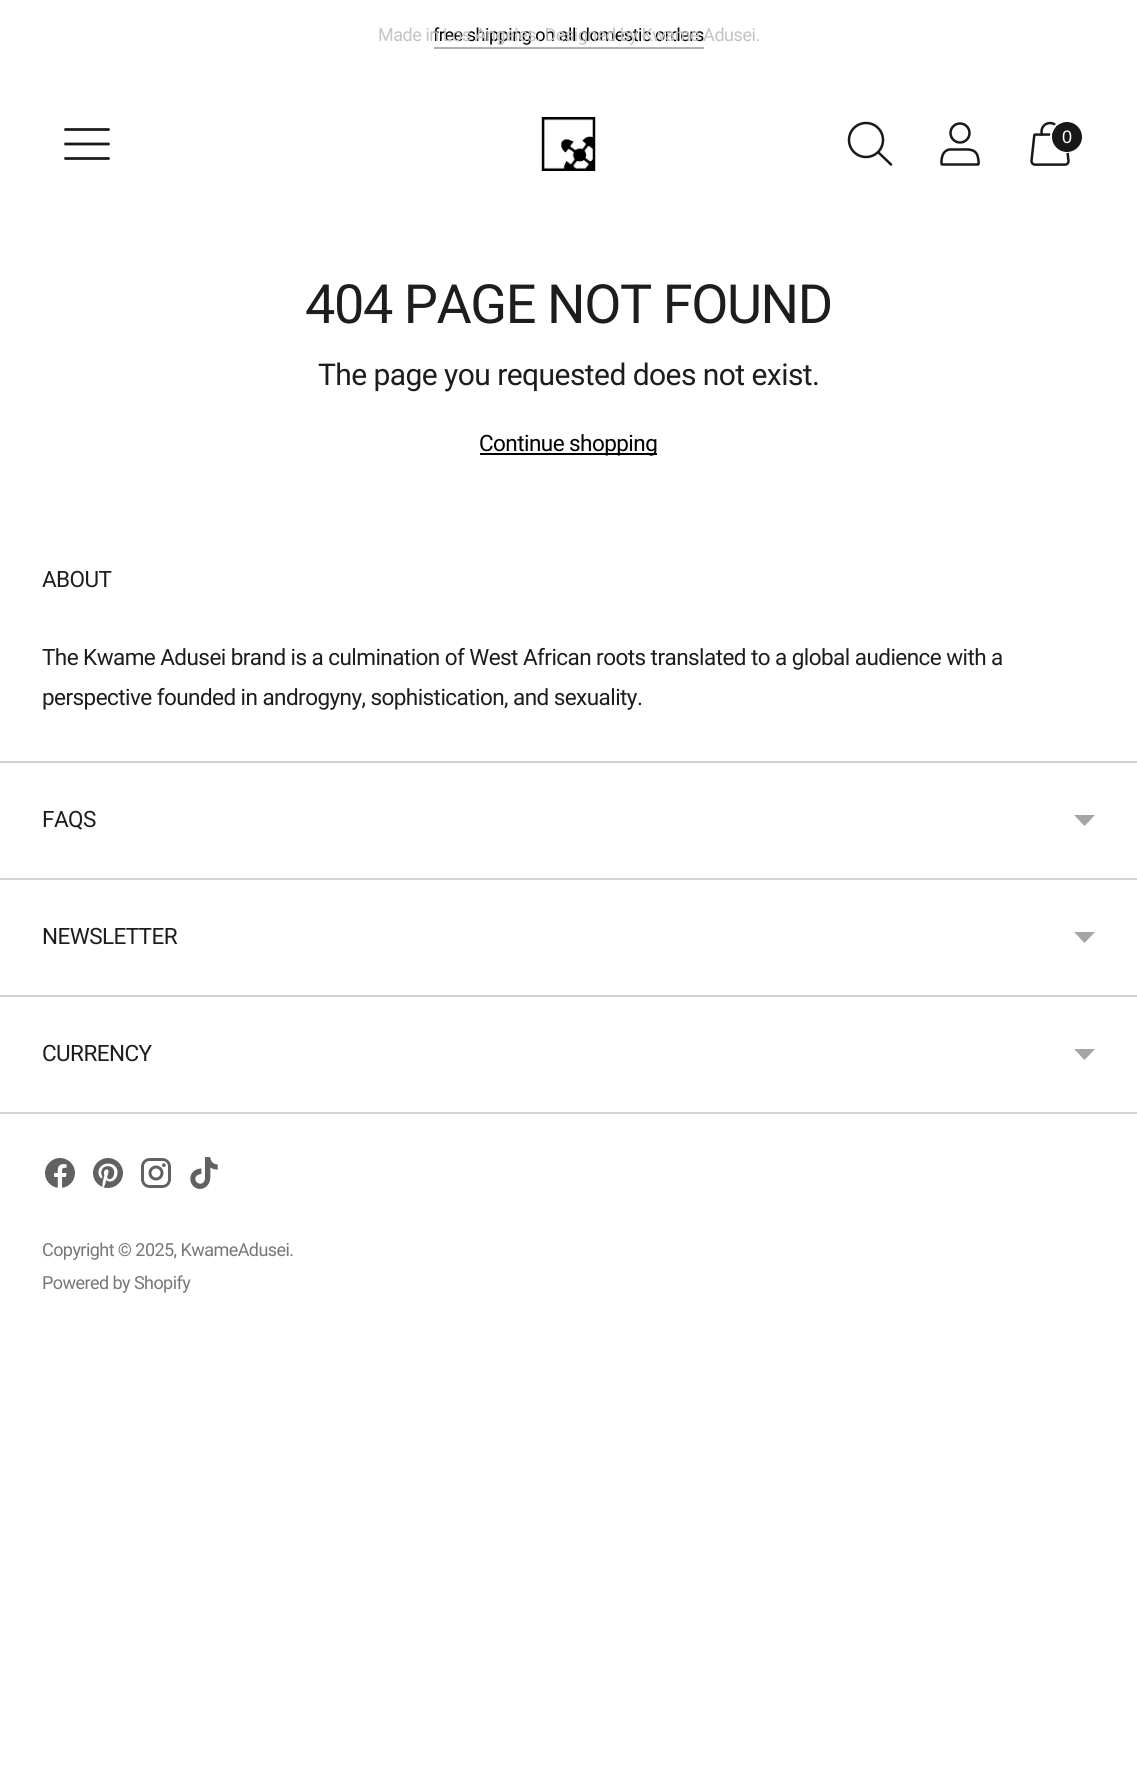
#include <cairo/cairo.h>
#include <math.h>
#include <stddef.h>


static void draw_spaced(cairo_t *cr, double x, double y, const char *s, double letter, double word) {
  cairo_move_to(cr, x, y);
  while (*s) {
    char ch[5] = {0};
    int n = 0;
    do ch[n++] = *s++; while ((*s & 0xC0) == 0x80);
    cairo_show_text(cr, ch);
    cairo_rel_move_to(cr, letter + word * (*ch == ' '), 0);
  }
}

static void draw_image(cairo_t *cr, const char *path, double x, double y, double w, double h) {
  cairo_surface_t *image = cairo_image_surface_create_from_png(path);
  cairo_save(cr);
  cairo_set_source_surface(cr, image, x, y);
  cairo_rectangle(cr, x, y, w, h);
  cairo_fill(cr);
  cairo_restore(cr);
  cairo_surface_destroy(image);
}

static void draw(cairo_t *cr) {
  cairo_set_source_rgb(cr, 1, 1, 1);
  cairo_paint(cr);
  cairo_set_source_rgb(cr, 179 / 255.0, 179 / 255.0, 179 / 255.0);
  cairo_rectangle(cr, 434, 47, 270, 2);
  cairo_fill(cr);
  cairo_new_path(cr);
  cairo_move_to(cr, 65.5, 144);
  cairo_line_to(cr, 108.5, 144);
  cairo_move_to(cr, 65.5, 129.5);
  cairo_line_to(cr, 108.5, 129.5);
  cairo_move_to(cr, 65.5, 158.5);
  cairo_line_to(cr, 108.5, 158.5);
  cairo_set_source_rgb(cr, 24 / 255.0, 24 / 255.0, 24 / 255.0);
  cairo_set_line_width(cr, 2.8);
  cairo_set_line_cap(cr, CAIRO_LINE_CAP_ROUND);
  cairo_set_line_join(cr, CAIRO_LINE_JOIN_ROUND);
  cairo_stroke(cr);
  draw_image(cr, "images/1.png", 541, 117, 55, 54);
  cairo_arc(cr, 866, 140, 17, 0, 2 * M_PI);
  cairo_set_line_width(cr, 2.5);
  cairo_set_line_cap(cr, CAIRO_LINE_CAP_BUTT);
  cairo_set_line_join(cr, CAIRO_LINE_JOIN_MITER);
  cairo_stroke(cr);
  cairo_new_path(cr);
  cairo_move_to(cr, 878.5, 152.5);
  cairo_line_to(cr, 891, 164.5);
  cairo_set_line_cap(cr, CAIRO_LINE_CAP_ROUND);
  cairo_set_line_join(cr, CAIRO_LINE_JOIN_ROUND);
  cairo_stroke(cr);
  cairo_arc(cr, 960, 133, 9.5, 0, 2 * M_PI);
  cairo_set_line_cap(cr, CAIRO_LINE_CAP_BUTT);
  cairo_set_line_join(cr, CAIRO_LINE_JOIN_MITER);
  cairo_stroke(cr);
  cairo_new_path(cr);
  cairo_move_to(cr, 978, 164.5);
  cairo_curve_to(cr, 979.5, 164.5, 978, 158.5, 978, 157.5);
  cairo_curve_to(cr, 976, 148, 967.5, 149.5, 960, 149.5);
  cairo_line_to(cr, 949, 149.5);
  cairo_curve_to(cr, 943.5, 151, 942, 155.5, 941.5, 160.5);
  cairo_line_to(cr, 941.5, 164);
  cairo_line_to(cr, 942, 164.5);
  cairo_close_path(cr);
  cairo_set_line_cap(cr, CAIRO_LINE_CAP_ROUND);
  cairo_set_line_join(cr, CAIRO_LINE_JOIN_ROUND);
  cairo_stroke(cr);
  draw_image(cr, "images/2.png", 1030, 121, 40, 45);
  cairo_arc(cr, 1066.5, 136.5, 15.5, 0, 2 * M_PI);
  cairo_set_source_rgb(cr, 1, 1, 1);
  cairo_set_line_width(cr, 2);
  cairo_set_line_cap(cr, CAIRO_LINE_CAP_BUTT);
  cairo_set_line_join(cr, CAIRO_LINE_JOIN_MITER);
  cairo_stroke(cr);
  cairo_set_source_rgb(cr, 24 / 255.0, 24 / 255.0, 24 / 255.0);
  cairo_arc(cr, 1067, 137, 15, 0, 2 * M_PI);
  cairo_fill(cr);
  cairo_set_source_rgb(cr, 0, 0, 0);
  cairo_rectangle(cr, 480, 453, 177, 2);
  cairo_fill(cr);
  cairo_set_source_rgb(cr, 210 / 255.0, 210 / 255.0, 210 / 255.0);
  cairo_rectangle(cr, 0, 761, 1137, 2);
  cairo_fill(cr);
  cairo_rectangle(cr, 0, 878, 1137, 2);
  cairo_fill(cr);
  cairo_set_source_rgb(cr, 165 / 255.0, 165 / 255.0, 165 / 255.0);
  cairo_new_path(cr);
  cairo_move_to(cr, 1074, 815);
  cairo_line_to(cr, 1084.5, 826);
  cairo_line_to(cr, 1095, 815);
  cairo_close_path(cr);
  cairo_fill(cr);
  cairo_set_source_rgb(cr, 210 / 255.0, 210 / 255.0, 210 / 255.0);
  cairo_rectangle(cr, 0, 995, 1137, 2);
  cairo_fill(cr);
  cairo_set_source_rgb(cr, 165 / 255.0, 165 / 255.0, 165 / 255.0);
  cairo_new_path(cr);
  cairo_move_to(cr, 1074, 932);
  cairo_line_to(cr, 1084.5, 943);
  cairo_line_to(cr, 1095, 932);
  cairo_close_path(cr);
  cairo_fill(cr);
  cairo_set_source_rgb(cr, 210 / 255.0, 210 / 255.0, 210 / 255.0);
  cairo_rectangle(cr, 0, 1112, 1137, 2);
  cairo_fill(cr);
  cairo_set_source_rgb(cr, 165 / 255.0, 165 / 255.0, 165 / 255.0);
  cairo_new_path(cr);
  cairo_move_to(cr, 1074, 1049);
  cairo_line_to(cr, 1084.5, 1060);
  cairo_line_to(cr, 1095, 1049);
  cairo_close_path(cr);
  cairo_fill(cr);
  draw_image(cr, "images/3.png", 45, 1158, 30, 30);
  draw_image(cr, "images/4.png", 93, 1158, 30, 30);
  draw_image(cr, "images/5.png", 141, 1158, 30, 30);
  draw_image(cr, "images/6.png", 190, 1157, 28, 32);
  cairo_select_font_face(cr, "Roboto", CAIRO_FONT_SLANT_NORMAL, CAIRO_FONT_WEIGHT_NORMAL);
  cairo_set_font_size(cr, 18);
  cairo_set_source_rgb(cr, 0, 0, 0);
  draw_spaced(cr, 433, 41, "free shipping on all domestic orders", -0.45, 0);
  cairo_set_source_rgb(cr, 195 / 255.0, 195 / 255.0, 195 / 255.0);
  draw_spaced(cr, 378, 41, "Made in Los Angeles. Designed by Kwame Adusei.", -0.45, 0);
  cairo_select_font_face(cr, "Liberation Sans", CAIRO_FONT_SLANT_NORMAL, CAIRO_FONT_WEIGHT_NORMAL);
  cairo_set_source_rgb(cr, 1, 1, 1);
  draw_spaced(cr, 1062, 143, "0", -0.56, 0);
  cairo_select_font_face(cr, "Roboto", CAIRO_FONT_SLANT_NORMAL, CAIRO_FONT_WEIGHT_NORMAL);
  cairo_set_font_size(cr, 54);
  cairo_set_source_rgb(cr, 29 / 255.0, 29 / 255.0, 29 / 255.0);
  draw_spaced(cr, 305, 323, "404 PAGE NOT FOUND", -1.4, 0);
  cairo_set_font_size(cr, 30);
  draw_spaced(cr, 318, 385, "The page you requested does not exist.", -0.56, 0);
  cairo_set_font_size(cr, 22.5);
  cairo_set_source_rgb(cr, 0, 0, 0);
  draw_spaced(cr, 479, 451, "Continue shopping", -0.56, 0);
  cairo_set_source_rgb(cr, 29 / 255.0, 29 / 255.0, 29 / 255.0);
  draw_spaced(cr, 42, 587, "ABOUT", -0.56, 0);
  draw_spaced(cr, 42, 665, "The Kwame Adusei brand is a culmination of West African roots translated to a global audience with a", -0.56, 0);
  draw_spaced(cr, 42, 705, "perspective founded in androgyny, sophistication, and sexuality.", -0.56, 0);
  draw_spaced(cr, 42, 827, "FAQS", -0.56, 0);
  draw_spaced(cr, 42, 944, "NEWSLETTER", -0.56, 0);
  draw_spaced(cr, 42, 1061, "CURRENCY", -0.56, 0);
  cairo_set_font_size(cr, 18);
  cairo_set_source_rgb(cr, 119 / 255.0, 119 / 255.0, 119 / 255.0);
  draw_spaced(cr, 42, 1256, "Copyright © 2025, KwameAdusei.", -0.56, 0);
  draw_spaced(cr, 42, 1289, "Powered by Shopify", -0.56, 0);
}

int main(void) {
  cairo_surface_t *surface = cairo_image_surface_create(CAIRO_FORMAT_RGB24, 1137, 1785);
  cairo_t *cr = cairo_create(surface);
  cairo_font_options_t *options = cairo_font_options_create();
  cairo_font_options_set_hint_metrics(options, CAIRO_HINT_METRICS_OFF);
  cairo_font_options_set_hint_style(options, CAIRO_HINT_STYLE_NONE);
  cairo_set_font_options(cr, options);
  cairo_set_miter_limit(cr, 4);
  draw(cr);
  cairo_surface_write_to_png(surface, "out.png");
  cairo_font_options_destroy(options);
  cairo_destroy(cr);
  cairo_surface_destroy(surface);
  return 0;
}
